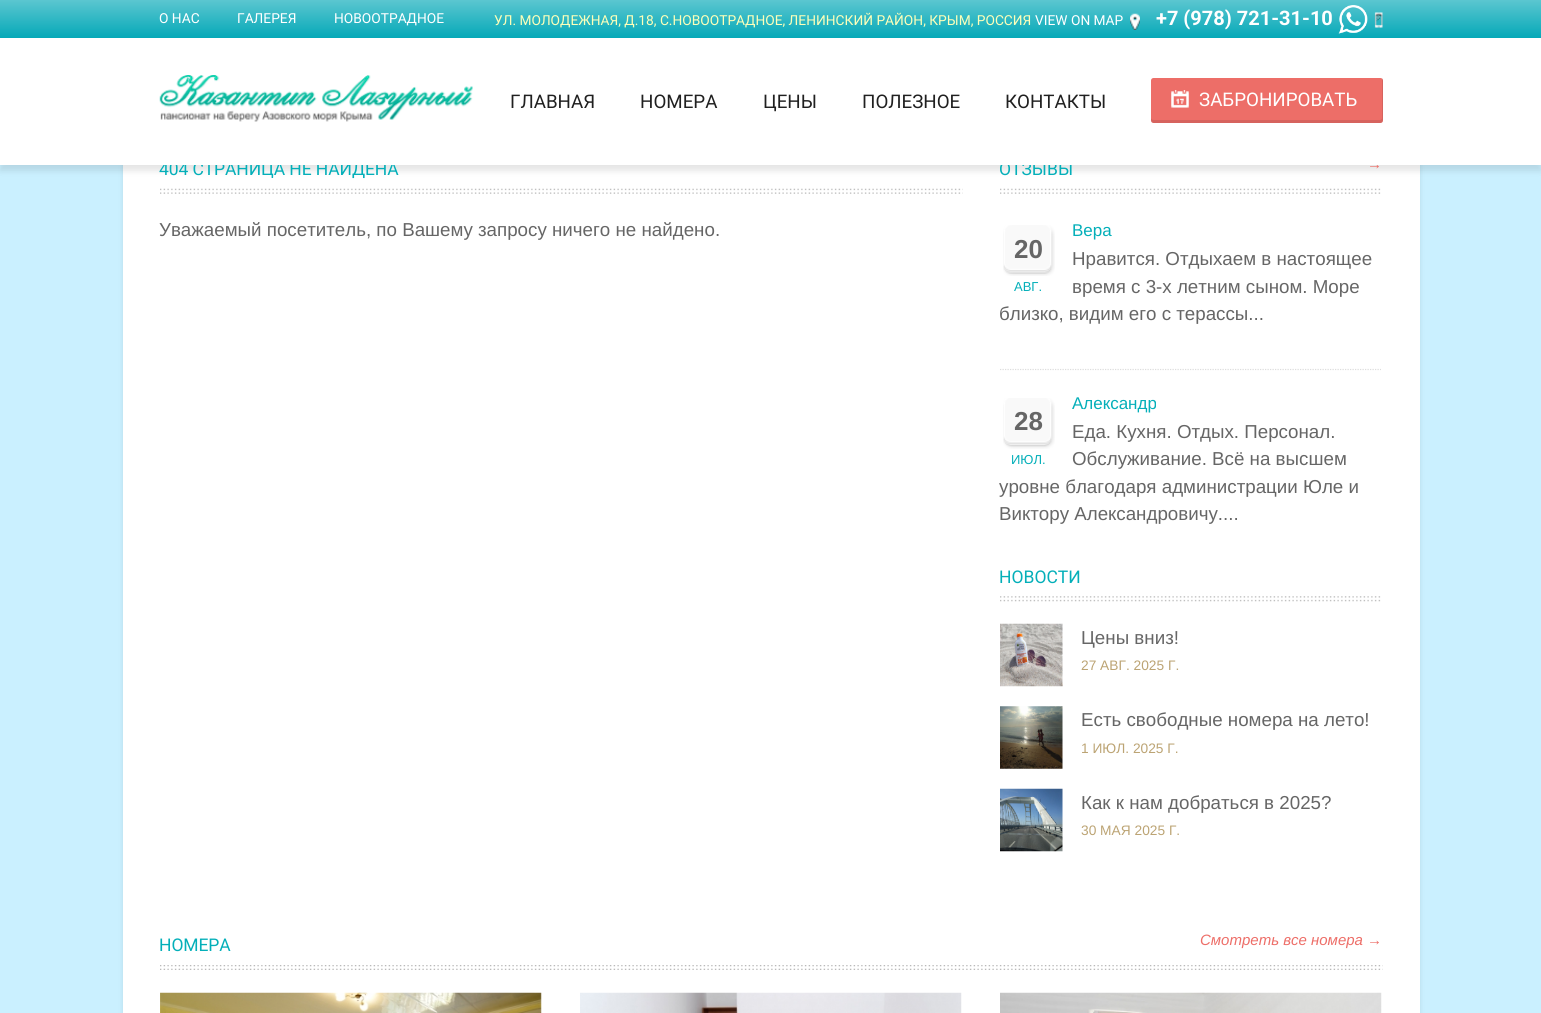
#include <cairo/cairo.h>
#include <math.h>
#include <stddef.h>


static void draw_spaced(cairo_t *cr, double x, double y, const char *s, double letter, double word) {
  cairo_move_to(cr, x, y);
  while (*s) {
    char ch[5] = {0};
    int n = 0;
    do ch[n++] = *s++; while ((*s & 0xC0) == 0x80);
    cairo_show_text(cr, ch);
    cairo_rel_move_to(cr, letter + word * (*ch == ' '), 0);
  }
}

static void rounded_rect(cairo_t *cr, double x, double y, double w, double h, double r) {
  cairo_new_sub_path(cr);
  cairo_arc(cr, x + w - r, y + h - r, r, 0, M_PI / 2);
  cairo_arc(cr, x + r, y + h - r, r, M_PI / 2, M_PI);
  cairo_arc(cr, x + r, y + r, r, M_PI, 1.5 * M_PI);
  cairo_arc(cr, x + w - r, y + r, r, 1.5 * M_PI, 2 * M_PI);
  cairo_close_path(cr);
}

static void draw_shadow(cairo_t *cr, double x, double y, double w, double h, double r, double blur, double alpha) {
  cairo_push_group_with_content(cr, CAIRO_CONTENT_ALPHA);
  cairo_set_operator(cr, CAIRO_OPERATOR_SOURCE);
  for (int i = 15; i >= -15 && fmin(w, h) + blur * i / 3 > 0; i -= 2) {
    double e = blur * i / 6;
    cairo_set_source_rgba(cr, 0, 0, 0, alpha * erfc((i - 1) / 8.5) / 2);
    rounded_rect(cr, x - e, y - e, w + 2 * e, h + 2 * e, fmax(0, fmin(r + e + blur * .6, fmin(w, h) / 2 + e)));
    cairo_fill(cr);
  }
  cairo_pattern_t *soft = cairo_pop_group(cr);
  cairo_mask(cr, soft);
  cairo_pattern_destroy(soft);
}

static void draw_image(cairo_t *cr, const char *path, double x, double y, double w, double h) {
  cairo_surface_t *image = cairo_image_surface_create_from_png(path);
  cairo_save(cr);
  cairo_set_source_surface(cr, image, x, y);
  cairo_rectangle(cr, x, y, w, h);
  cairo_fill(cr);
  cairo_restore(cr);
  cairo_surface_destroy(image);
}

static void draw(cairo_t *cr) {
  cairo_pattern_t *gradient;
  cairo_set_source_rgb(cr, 202 / 255.0, 240 / 255.0, 1);
  cairo_paint(cr);
  cairo_set_source_rgb(cr, 0, 0, 0);
  draw_shadow(cr, 123, 40, 1297, 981, 0, 2.5, 0.1);
  gradient = cairo_pattern_create_linear(771, 0, 771, 38);
  cairo_pattern_add_color_stop_rgba(gradient, 0, 91 / 255.0, 198 / 255.0, 208 / 255.0, 1);
  cairo_pattern_add_color_stop_rgba(gradient, 0.99, 6 / 255.0, 169 / 255.0, 184 / 255.0, 1);
  cairo_pattern_add_color_stop_rgba(gradient, 1, 6 / 255.0, 169 / 255.0, 184 / 255.0, 1);
  cairo_set_source(cr, gradient);
  cairo_pattern_destroy(gradient);
  cairo_rectangle(cr, 0, 0, 1541, 38);
  cairo_fill(cr);
  draw_image(cr, "images/1.png", 1130, 13, 10, 17);
  draw_image(cr, "images/2.png", 1374, 12, 9, 16);
  draw_image(cr, "images/3.png", 1338, 5, 30, 29);
  cairo_set_source_rgb(cr, 1, 1, 1);
  cairo_rectangle(cr, 123, 165, 1297, 848);
  cairo_fill(cr);
  cairo_set_source_rgb(cr, 0, 0, 0);
  draw_shadow(cr, 0, 44, 1541, 127, 0, 3, 0.1);
  draw_image(cr, "images/6.png", 160, 188, 803, 6);
  draw_image(cr, "images/7.png", 1000, 188, 381, 6);
  cairo_new_path(cr);
  cairo_move_to(cr, 1000, 369.5);
  cairo_line_to(cr, 1381, 369.5);
  cairo_set_source_rgb(cr, 221 / 255.0, 221 / 255.0, 221 / 255.0);
  cairo_set_line_width(cr, 1.2);
  cairo_set_dash(cr, (double[]){1.25, 1.25}, 2, 0);
  cairo_stroke(cr);
  draw_image(cr, "images/8.png", 1003, 225, 52, 51);
  draw_image(cr, "images/9.png", 1003, 398, 52, 51);
  draw_image(cr, "images/10.png", 1000, 596, 381, 6);
  draw_image(cr, "images/11.png", 1000, 623, 63, 64);
  draw_image(cr, "images/12.png", 1000, 706, 63, 63);
  draw_image(cr, "images/13.png", 1000, 788, 63, 64);
  draw_image(cr, "images/14.png", 160, 965, 1223, 5);
  draw_image(cr, "images/15.png", 160, 992, 382, 21);
  draw_image(cr, "images/16.png", 580, 992, 382, 21);
  draw_image(cr, "images/17.png", 1000, 992, 382, 21);
  cairo_select_font_face(cr, "Roboto", CAIRO_FONT_SLANT_NORMAL, CAIRO_FONT_WEIGHT_NORMAL);
  cairo_set_font_size(cr, 13.75);
  cairo_set_source_rgb(cr, 1, 1, 1);
  cairo_move_to(cr, 159, 23);
  cairo_show_text(cr, "О НАС");
  cairo_move_to(cr, 237, 23);
  cairo_show_text(cr, "ГАЛЕРЕЯ");
  cairo_move_to(cr, 334, 23);
  cairo_show_text(cr, "НОВООТРАДНОЕ");
  cairo_set_source_rgb(cr, 253 / 255.0, 1, 185 / 255.0);
  cairo_move_to(cr, 494, 25);
  cairo_show_text(cr, "УЛ. МОЛОДЕЖНАЯ, Д.18, С.НОВООТРАДНОЕ, ЛЕНИНСКИЙ РАЙОН, КРЫМ, РОССИЯ");
  cairo_set_source_rgb(cr, 1, 1, 1);
  cairo_move_to(cr, 1035, 25);
  cairo_show_text(cr, "VIEW ON MAP");
  cairo_select_font_face(cr, "Roboto", CAIRO_FONT_SLANT_NORMAL, CAIRO_FONT_WEIGHT_BOLD);
  cairo_set_font_size(cr, 20);
  cairo_move_to(cr, 1156, 25);
  cairo_show_text(cr, "+7 (978) 721-31-10");
  cairo_select_font_face(cr, "Roboto", CAIRO_FONT_SLANT_NORMAL, CAIRO_FONT_WEIGHT_NORMAL);
  cairo_set_font_size(cr, 17.5);
  cairo_set_source_rgb(cr, 4 / 255.0, 175 / 255.0, 185 / 255.0);
  draw_spaced(cr, 159, 175, "404 СТРАНИЦА НЕ НАЙДЕНА", -0.1, 0);
  cairo_select_font_face(cr, "Liberation Sans", CAIRO_FONT_SLANT_NORMAL, CAIRO_FONT_WEIGHT_NORMAL);
  cairo_set_font_size(cr, 18.75);
  cairo_set_source_rgb(cr, 102 / 255.0, 102 / 255.0, 102 / 255.0);
  cairo_move_to(cr, 159, 236);
  cairo_show_text(cr, "Уважаемый посетитель, по Вашему запросу ничего не найдено.");
  cairo_select_font_face(cr, "Roboto", CAIRO_FONT_SLANT_NORMAL, CAIRO_FONT_WEIGHT_NORMAL);
  cairo_set_font_size(cr, 17.5);
  cairo_set_source_rgb(cr, 4 / 255.0, 175 / 255.0, 185 / 255.0);
  cairo_move_to(cr, 999, 175);
  cairo_show_text(cr, "ОТЗЫВЫ");
  cairo_select_font_face(cr, "Liberation Sans", CAIRO_FONT_SLANT_ITALIC, CAIRO_FONT_WEIGHT_NORMAL);
  cairo_set_font_size(cr, 15);
  cairo_set_source_rgb(cr, 237 / 255.0, 110 / 255.0, 104 / 255.0);
  cairo_move_to(cr, 1367, 169);
  cairo_show_text(cr, "→");
  cairo_set_source_rgb(cr, 1, 1, 1);
  cairo_rectangle(cr, 0, 38, 1541, 127);
  cairo_fill(cr);
  cairo_select_font_face(cr, "Roboto", CAIRO_FONT_SLANT_NORMAL, CAIRO_FONT_WEIGHT_NORMAL);
  cairo_set_font_size(cr, 18.75);
  cairo_set_source_rgb(cr, 32 / 255.0, 32 / 255.0, 32 / 255.0);
  cairo_move_to(cr, 510, 108);
  cairo_show_text(cr, "ГЛАВНАЯ");
  cairo_move_to(cr, 640, 108);
  cairo_show_text(cr, "НОМЕРА");
  cairo_move_to(cr, 763, 108);
  cairo_show_text(cr, "ЦЕНЫ");
  cairo_move_to(cr, 862, 108);
  cairo_show_text(cr, "ПОЛЕЗНОЕ");
  cairo_move_to(cr, 1005, 108);
  cairo_show_text(cr, "КОНТАКТЫ");
  draw_image(cr, "images/4.png", 159, 75, 314, 47);
  cairo_set_source_rgb(cr, 237 / 255.0, 110 / 255.0, 104 / 255.0);
  rounded_rect(cr, 1151, 78, 232, 45, 2.5);
  cairo_fill(cr);
  draw_image(cr, "images/5.png", 1171, 90, 18, 18);
  cairo_set_source_rgba(cr, 0, 0, 0, 0.1);
  cairo_new_path(cr);
  cairo_move_to(cr, 1151, 118);
  cairo_line_to(cr, 1151, 120);
  cairo_curve_to(cr, 1151, 122, 1152, 123, 1154, 123);
  cairo_line_to(cr, 1380, 123);
  cairo_curve_to(cr, 1382, 123, 1383, 122, 1383, 120);
  cairo_line_to(cr, 1383, 80);
  cairo_curve_to(cr, 1383, 80, 1383, 79, 1382, 78);
  cairo_line_to(cr, 1382, 118);
  cairo_curve_to(cr, 1382, 119, 1381, 120, 1380, 120);
  cairo_line_to(cr, 1154, 120);
  cairo_curve_to(cr, 1152, 120, 1151, 119, 1151, 118);
  cairo_close_path(cr);
  cairo_fill(cr);
  cairo_set_source_rgb(cr, 1, 1, 1);
  cairo_move_to(cr, 1199, 106);
  cairo_show_text(cr, "ЗАБРОНИРОВАТЬ");
  cairo_select_font_face(cr, "Liberation Sans", CAIRO_FONT_SLANT_NORMAL, CAIRO_FONT_WEIGHT_NORMAL);
  cairo_set_font_size(cr, 17);
  cairo_set_source_rgb(cr, 4 / 255.0, 175 / 255.0, 185 / 255.0);
  cairo_move_to(cr, 1072, 236);
  cairo_show_text(cr, "Вера");
  cairo_select_font_face(cr, "Liberation Sans", CAIRO_FONT_SLANT_NORMAL, CAIRO_FONT_WEIGHT_BOLD);
  cairo_set_font_size(cr, 26);
  cairo_set_source_rgb(cr, 102 / 255.0, 102 / 255.0, 102 / 255.0);
  cairo_move_to(cr, 1014, 258);
  cairo_show_text(cr, "20");
  cairo_select_font_face(cr, "Liberation Sans", CAIRO_FONT_SLANT_NORMAL, CAIRO_FONT_WEIGHT_NORMAL);
  cairo_set_font_size(cr, 13);
  cairo_set_source_rgb(cr, 4 / 255.0, 175 / 255.0, 185 / 255.0);
  cairo_move_to(cr, 1014, 291);
  cairo_show_text(cr, "АВГ.");
  cairo_set_font_size(cr, 18.75);
  cairo_set_source_rgb(cr, 102 / 255.0, 102 / 255.0, 102 / 255.0);
  cairo_move_to(cr, 1072, 265);
  cairo_show_text(cr, "Нравится. Отдыхаем в настоящее");
  cairo_move_to(cr, 1072, 293);
  cairo_show_text(cr, "время с 3-х летним сыном. Море");
  cairo_move_to(cr, 999, 320);
  cairo_show_text(cr, "близко, видим его с терассы...");
  cairo_set_font_size(cr, 17);
  cairo_set_source_rgb(cr, 4 / 255.0, 175 / 255.0, 185 / 255.0);
  cairo_move_to(cr, 1072, 409);
  cairo_show_text(cr, "Александр");
  cairo_select_font_face(cr, "Liberation Sans", CAIRO_FONT_SLANT_NORMAL, CAIRO_FONT_WEIGHT_BOLD);
  cairo_set_font_size(cr, 26);
  cairo_set_source_rgb(cr, 102 / 255.0, 102 / 255.0, 102 / 255.0);
  cairo_move_to(cr, 1014, 430);
  cairo_show_text(cr, "28");
  cairo_select_font_face(cr, "Liberation Sans", CAIRO_FONT_SLANT_NORMAL, CAIRO_FONT_WEIGHT_NORMAL);
  cairo_set_font_size(cr, 13);
  cairo_set_source_rgb(cr, 4 / 255.0, 175 / 255.0, 185 / 255.0);
  cairo_move_to(cr, 1011, 464);
  cairo_show_text(cr, "ИЮЛ.");
  cairo_set_font_size(cr, 18.75);
  cairo_set_source_rgb(cr, 102 / 255.0, 102 / 255.0, 102 / 255.0);
  cairo_move_to(cr, 1072, 438);
  cairo_show_text(cr, "Еда. Кухня. Отдых. Персонал.");
  cairo_move_to(cr, 1072, 465);
  cairo_show_text(cr, "Обслуживание. Всё на высшем");
  cairo_move_to(cr, 999, 493);
  cairo_show_text(cr, "уровне благодаря администрации Юле и");
  cairo_move_to(cr, 999, 520);
  cairo_show_text(cr, "Виктору Александровичу....");
  cairo_select_font_face(cr, "Roboto", CAIRO_FONT_SLANT_NORMAL, CAIRO_FONT_WEIGHT_NORMAL);
  cairo_set_font_size(cr, 17.5);
  cairo_set_source_rgb(cr, 4 / 255.0, 175 / 255.0, 185 / 255.0);
  cairo_move_to(cr, 999, 583);
  cairo_show_text(cr, "НОВОСТИ");
  cairo_select_font_face(cr, "Liberation Sans", CAIRO_FONT_SLANT_NORMAL, CAIRO_FONT_WEIGHT_NORMAL);
  cairo_set_font_size(cr, 18.75);
  cairo_set_source_rgb(cr, 102 / 255.0, 102 / 255.0, 102 / 255.0);
  cairo_move_to(cr, 1081, 644);
  cairo_show_text(cr, "Цены вниз!");
  cairo_set_font_size(cr, 13.75);
  cairo_set_source_rgb(cr, 188 / 255.0, 164 / 255.0, 116 / 255.0);
  cairo_move_to(cr, 1081, 670);
  cairo_show_text(cr, "27 АВГ. 2025 Г.");
  cairo_set_font_size(cr, 18.75);
  cairo_set_source_rgb(cr, 102 / 255.0, 102 / 255.0, 102 / 255.0);
  cairo_move_to(cr, 1081, 726);
  cairo_show_text(cr, "Есть свободные номера на лето!");
  cairo_set_font_size(cr, 13.75);
  cairo_set_source_rgb(cr, 188 / 255.0, 164 / 255.0, 116 / 255.0);
  cairo_move_to(cr, 1081, 753);
  cairo_show_text(cr, "1 ИЮЛ. 2025 Г.");
  cairo_set_font_size(cr, 18.75);
  cairo_set_source_rgb(cr, 102 / 255.0, 102 / 255.0, 102 / 255.0);
  cairo_move_to(cr, 1081, 809);
  cairo_show_text(cr, "Как к нам добраться в 2025?");
  cairo_set_font_size(cr, 13.75);
  cairo_set_source_rgb(cr, 188 / 255.0, 164 / 255.0, 116 / 255.0);
  cairo_move_to(cr, 1081, 835);
  cairo_show_text(cr, "30 МАЯ 2025 Г.");
  cairo_select_font_face(cr, "Roboto", CAIRO_FONT_SLANT_NORMAL, CAIRO_FONT_WEIGHT_NORMAL);
  cairo_set_font_size(cr, 17.5);
  cairo_set_source_rgb(cr, 4 / 255.0, 175 / 255.0, 185 / 255.0);
  draw_spaced(cr, 159, 951, "НОМЕРА", -0.1, 0);
  cairo_select_font_face(cr, "Liberation Sans", CAIRO_FONT_SLANT_ITALIC, CAIRO_FONT_WEIGHT_NORMAL);
  cairo_set_font_size(cr, 15);
  cairo_set_source_rgb(cr, 237 / 255.0, 110 / 255.0, 104 / 255.0);
  cairo_move_to(cr, 1200, 945);
  cairo_show_text(cr, "Смотреть все номера →");
}

int main(void) {
  cairo_surface_t *surface = cairo_image_surface_create(CAIRO_FORMAT_RGB24, 1541, 1013);
  cairo_t *cr = cairo_create(surface);
  cairo_font_options_t *options = cairo_font_options_create();
  cairo_font_options_set_hint_metrics(options, CAIRO_HINT_METRICS_OFF);
  cairo_font_options_set_hint_style(options, CAIRO_HINT_STYLE_NONE);
  cairo_set_font_options(cr, options);
  cairo_set_miter_limit(cr, 4);
  draw(cr);
  cairo_surface_write_to_png(surface, "out.png");
  cairo_font_options_destroy(options);
  cairo_destroy(cr);
  cairo_surface_destroy(surface);
  return 0;
}
